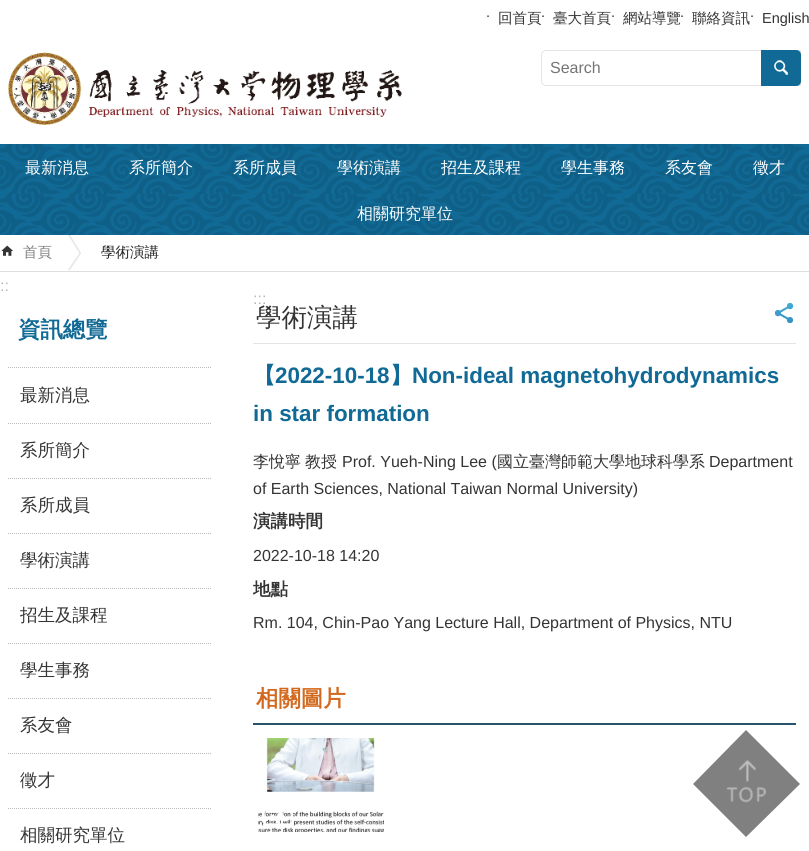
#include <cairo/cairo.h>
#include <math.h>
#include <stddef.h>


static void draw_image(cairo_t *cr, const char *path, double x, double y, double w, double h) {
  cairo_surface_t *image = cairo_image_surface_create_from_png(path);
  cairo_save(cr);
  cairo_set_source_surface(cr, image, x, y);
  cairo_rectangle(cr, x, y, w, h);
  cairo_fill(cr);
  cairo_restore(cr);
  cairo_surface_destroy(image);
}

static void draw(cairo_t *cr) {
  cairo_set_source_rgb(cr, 1, 1, 1);
  cairo_paint(cr);
  draw_image(cr, "images/1.png", 8, 52, 394, 73);
  cairo_new_path(cr);
  cairo_move_to(cr, 546, 50.5);
  cairo_line_to(cr, 800.5, 50.5);
  cairo_line_to(cr, 800.5, 85.5);
  cairo_line_to(cr, 546, 85.5);
  cairo_curve_to(cr, 543.5, 85.5, 541.5, 83.5, 541.5, 81);
  cairo_line_to(cr, 541.5, 55);
  cairo_curve_to(cr, 541.5, 52.5, 543.5, 50.5, 546, 50.5);
  cairo_close_path(cr);
  cairo_set_source_rgb(cr, 228 / 255.0, 228 / 255.0, 228 / 255.0);
  cairo_set_line_width(cr, 1);
  cairo_stroke(cr);
  cairo_set_source_rgb(cr, 17 / 255.0, 106 / 255.0, 149 / 255.0);
  cairo_new_path(cr);
  cairo_move_to(cr, 761, 50);
  cairo_line_to(cr, 796, 50);
  cairo_curve_to(cr, 799, 50, 801, 52, 801, 55);
  cairo_line_to(cr, 801, 81);
  cairo_curve_to(cr, 801, 84, 799, 86, 796, 86);
  cairo_line_to(cr, 761, 86);
  cairo_close_path(cr);
  cairo_fill(cr);
  draw_image(cr, "images/2.png", 774, 60, 14, 15);
  cairo_rectangle(cr, 0, 144, 809, 91);
  cairo_fill(cr);
  draw_image(cr, "images/3.png", 0, 144, 809, 91);
  cairo_set_source_rgb(cr, 221 / 255.0, 221 / 255.0, 221 / 255.0);
  cairo_rectangle(cr, 0, 271, 809, 1);
  cairo_fill(cr);
  draw_image(cr, "images/4.png", 1, 245, 12, 11);
  draw_image(cr, "images/5.png", 68, 235, 13, 35);
  cairo_new_path(cr);
  cairo_move_to(cr, 8, 367.5);
  cairo_line_to(cr, 212, 367.5);
  cairo_set_source_rgb(cr, 187 / 255.0, 187 / 255.0, 187 / 255.0);
  cairo_set_dash(cr, (double[]){1, 1}, 2, 0);
  cairo_stroke(cr);
  cairo_new_path(cr);
  cairo_move_to(cr, 8, 423.5);
  cairo_line_to(cr, 212, 423.5);
  cairo_stroke(cr);
  cairo_new_path(cr);
  cairo_move_to(cr, 8, 478.5);
  cairo_line_to(cr, 212, 478.5);
  cairo_stroke(cr);
  cairo_new_path(cr);
  cairo_move_to(cr, 8, 533.5);
  cairo_line_to(cr, 212, 533.5);
  cairo_stroke(cr);
  cairo_new_path(cr);
  cairo_move_to(cr, 8, 588.5);
  cairo_line_to(cr, 212, 588.5);
  cairo_stroke(cr);
  cairo_new_path(cr);
  cairo_move_to(cr, 8, 643.5);
  cairo_line_to(cr, 212, 643.5);
  cairo_stroke(cr);
  cairo_new_path(cr);
  cairo_move_to(cr, 8, 698.5);
  cairo_line_to(cr, 212, 698.5);
  cairo_stroke(cr);
  cairo_new_path(cr);
  cairo_move_to(cr, 8, 753.5);
  cairo_line_to(cr, 212, 753.5);
  cairo_stroke(cr);
  cairo_new_path(cr);
  cairo_move_to(cr, 8, 808.5);
  cairo_line_to(cr, 212, 808.5);
  cairo_stroke(cr);
  cairo_set_source_rgb(cr, 228 / 255.0, 228 / 255.0, 228 / 255.0);
  cairo_rectangle(cr, 253, 343, 543, 1);
  cairo_fill(cr);
  draw_image(cr, "images/6.png", 775, 303, 19, 20);
  cairo_set_source_rgb(cr, 39 / 255.0, 84 / 255.0, 107 / 255.0);
  cairo_rectangle(cr, 253, 723, 543, 2);
  cairo_fill(cr);
  draw_image(cr, "images/7.png", 258, 738, 126, 94);
  draw_image(cr, "images/8.png", 263, 811, 30, 14);
  cairo_set_source_rgb(cr, 128 / 255.0, 128 / 255.0, 128 / 255.0);
  cairo_new_path(cr);
  cairo_move_to(cr, 746, 730);
  cairo_line_to(cr, 800, 784);
  cairo_line_to(cr, 746, 837);
  cairo_line_to(cr, 693, 784);
  cairo_close_path(cr);
  cairo_fill(cr);
  draw_image(cr, "images/9.png", 726, 760, 41, 43);
  cairo_select_font_face(cr, "Liberation Sans", CAIRO_FONT_SLANT_NORMAL, CAIRO_FONT_WEIGHT_NORMAL);
  cairo_set_font_size(cr, 14.5);
  cairo_set_source_rgb(cr, 52 / 255.0, 52 / 255.0, 52 / 255.0);
  cairo_move_to(cr, 486, 17);
  cairo_show_text(cr, ".");
  cairo_select_font_face(cr, "WenQuanYi Zen Hei Medium", CAIRO_FONT_SLANT_NORMAL, CAIRO_FONT_WEIGHT_NORMAL);
  cairo_move_to(cr, 498, 23);
  cairo_show_text(cr, "回首頁");
  cairo_select_font_face(cr, "Liberation Sans", CAIRO_FONT_SLANT_NORMAL, CAIRO_FONT_WEIGHT_NORMAL);
  cairo_move_to(cr, 541, 17);
  cairo_show_text(cr, ".");
  cairo_select_font_face(cr, "WenQuanYi Zen Hei Medium", CAIRO_FONT_SLANT_NORMAL, CAIRO_FONT_WEIGHT_NORMAL);
  cairo_move_to(cr, 553, 23);
  cairo_show_text(cr, "臺大首頁");
  cairo_select_font_face(cr, "Liberation Sans", CAIRO_FONT_SLANT_NORMAL, CAIRO_FONT_WEIGHT_NORMAL);
  cairo_move_to(cr, 611, 17);
  cairo_show_text(cr, ".");
  cairo_select_font_face(cr, "WenQuanYi Zen Hei Medium", CAIRO_FONT_SLANT_NORMAL, CAIRO_FONT_WEIGHT_NORMAL);
  cairo_move_to(cr, 623, 23);
  cairo_show_text(cr, "網站導覽");
  cairo_select_font_face(cr, "Liberation Sans", CAIRO_FONT_SLANT_NORMAL, CAIRO_FONT_WEIGHT_NORMAL);
  cairo_move_to(cr, 680, 17);
  cairo_show_text(cr, ".");
  cairo_select_font_face(cr, "WenQuanYi Zen Hei Medium", CAIRO_FONT_SLANT_NORMAL, CAIRO_FONT_WEIGHT_NORMAL);
  cairo_move_to(cr, 692, 23);
  cairo_show_text(cr, "聯絡資訊");
  cairo_select_font_face(cr, "Liberation Sans", CAIRO_FONT_SLANT_NORMAL, CAIRO_FONT_WEIGHT_NORMAL);
  cairo_move_to(cr, 750, 17);
  cairo_show_text(cr, ".");
  cairo_move_to(cr, 762, 23);
  cairo_show_text(cr, "English");
  cairo_set_font_size(cr, 16);
  cairo_set_source_rgb(cr, 117 / 255.0, 117 / 255.0, 117 / 255.0);
  cairo_move_to(cr, 550, 73);
  cairo_show_text(cr, "Search");
  cairo_select_font_face(cr, "WenQuanYi Zen Hei Medium", CAIRO_FONT_SLANT_NORMAL, CAIRO_FONT_WEIGHT_NORMAL);
  cairo_set_source_rgb(cr, 1, 1, 1);
  cairo_move_to(cr, 25, 173);
  cairo_show_text(cr, "最新消息");
  cairo_move_to(cr, 129, 173);
  cairo_show_text(cr, "系所簡介");
  cairo_move_to(cr, 233, 173);
  cairo_show_text(cr, "系所成員");
  cairo_move_to(cr, 337, 173);
  cairo_show_text(cr, "學術演講");
  cairo_move_to(cr, 441, 173);
  cairo_show_text(cr, "招生及課程");
  cairo_move_to(cr, 561, 173);
  cairo_show_text(cr, "學生事務");
  cairo_move_to(cr, 665, 173);
  cairo_show_text(cr, "系友會");
  cairo_move_to(cr, 753, 173);
  cairo_show_text(cr, "徵才");
  cairo_move_to(cr, 357, 219);
  cairo_show_text(cr, "相關研究單位");
  cairo_set_font_size(cr, 14.5);
  cairo_set_source_rgb(cr, 128 / 255.0, 128 / 255.0, 128 / 255.0);
  cairo_move_to(cr, 23, 257);
  cairo_show_text(cr, "首頁");
  cairo_set_source_rgb(cr, 34 / 255.0, 34 / 255.0, 34 / 255.0);
  cairo_move_to(cr, 101, 257);
  cairo_show_text(cr, "學術演講");
  cairo_select_font_face(cr, "Liberation Sans", CAIRO_FONT_SLANT_NORMAL, CAIRO_FONT_WEIGHT_NORMAL);
  cairo_set_font_size(cr, 16);
  cairo_set_source_rgb(cr, 182 / 255.0, 182 / 255.0, 182 / 255.0);
  cairo_move_to(cr, 0, 291);
  cairo_show_text(cr, "::");
  cairo_select_font_face(cr, "WenQuanYi Zen Hei", CAIRO_FONT_SLANT_NORMAL, CAIRO_FONT_WEIGHT_BOLD);
  cairo_set_font_size(cr, 22.4);
  cairo_set_source_rgb(cr, 17 / 255.0, 106 / 255.0, 149 / 255.0);
  cairo_move_to(cr, 18, 337);
  cairo_show_text(cr, "資訊總覽");
  cairo_select_font_face(cr, "WenQuanYi Zen Hei Medium", CAIRO_FONT_SLANT_NORMAL, CAIRO_FONT_WEIGHT_NORMAL);
  cairo_set_font_size(cr, 17.5);
  cairo_set_source_rgb(cr, 52 / 255.0, 52 / 255.0, 52 / 255.0);
  cairo_move_to(cr, 20, 401);
  cairo_show_text(cr, "最新消息");
  cairo_move_to(cr, 20, 456);
  cairo_show_text(cr, "系所簡介");
  cairo_move_to(cr, 20, 511);
  cairo_show_text(cr, "系所成員");
  cairo_move_to(cr, 20, 566);
  cairo_show_text(cr, "學術演講");
  cairo_move_to(cr, 20, 621);
  cairo_show_text(cr, "招生及課程");
  cairo_move_to(cr, 20, 676);
  cairo_show_text(cr, "學生事務");
  cairo_move_to(cr, 20, 731);
  cairo_show_text(cr, "系友會");
  cairo_move_to(cr, 20, 786);
  cairo_show_text(cr, "徵才");
  cairo_move_to(cr, 20, 841);
  cairo_show_text(cr, "相關研究單位");
  cairo_select_font_face(cr, "Liberation Sans", CAIRO_FONT_SLANT_NORMAL, CAIRO_FONT_WEIGHT_NORMAL);
  cairo_set_font_size(cr, 16);
  cairo_set_source_rgb(cr, 182 / 255.0, 182 / 255.0, 182 / 255.0);
  cairo_move_to(cr, 253, 304);
  cairo_show_text(cr, ":::");
  cairo_select_font_face(cr, "WenQuanYi Zen Hei Medium", CAIRO_FONT_SLANT_NORMAL, CAIRO_FONT_WEIGHT_NORMAL);
  cairo_set_font_size(cr, 25.5);
  cairo_set_source_rgb(cr, 52 / 255.0, 52 / 255.0, 52 / 255.0);
  cairo_move_to(cr, 256, 326);
  cairo_show_text(cr, "學術演講");
  cairo_select_font_face(cr, "WenQuanYi Zen Hei", CAIRO_FONT_SLANT_NORMAL, CAIRO_FONT_WEIGHT_BOLD);
  cairo_set_font_size(cr, 22.4);
  cairo_set_source_rgb(cr, 17 / 255.0, 106 / 255.0, 149 / 255.0);
  cairo_move_to(cr, 253, 383);
  cairo_show_text(cr, "【");
  cairo_select_font_face(cr, "Liberation Sans", CAIRO_FONT_SLANT_NORMAL, CAIRO_FONT_WEIGHT_BOLD);
  cairo_move_to(cr, 275, 383);
  cairo_show_text(cr, "2022-10-18");
  cairo_select_font_face(cr, "WenQuanYi Zen Hei", CAIRO_FONT_SLANT_NORMAL, CAIRO_FONT_WEIGHT_BOLD);
  cairo_move_to(cr, 390, 383);
  cairo_show_text(cr, "】");
  cairo_select_font_face(cr, "Liberation Sans", CAIRO_FONT_SLANT_NORMAL, CAIRO_FONT_WEIGHT_BOLD);
  cairo_move_to(cr, 412, 383);
  cairo_show_text(cr, "Non-ideal magnetohydrodynamics");
  cairo_move_to(cr, 253, 421);
  cairo_show_text(cr, "in star formation");
  cairo_select_font_face(cr, "WenQuanYi Zen Hei Medium", CAIRO_FONT_SLANT_NORMAL, CAIRO_FONT_WEIGHT_NORMAL);
  cairo_set_font_size(cr, 16);
  cairo_set_source_rgb(cr, 52 / 255.0, 52 / 255.0, 52 / 255.0);
  cairo_move_to(cr, 253, 467);
  cairo_show_text(cr, "李悅寧");
  cairo_move_to(cr, 305, 467);
  cairo_show_text(cr, "教授");
  cairo_select_font_face(cr, "Liberation Sans", CAIRO_FONT_SLANT_NORMAL, CAIRO_FONT_WEIGHT_NORMAL);
  cairo_move_to(cr, 342, 467);
  cairo_show_text(cr, "Prof. Yueh-Ning Lee (");
  cairo_select_font_face(cr, "WenQuanYi Zen Hei Medium", CAIRO_FONT_SLANT_NORMAL, CAIRO_FONT_WEIGHT_NORMAL);
  cairo_move_to(cr, 497, 467);
  cairo_show_text(cr, "國立臺灣師範大學地球科學系");
  cairo_select_font_face(cr, "Liberation Sans", CAIRO_FONT_SLANT_NORMAL, CAIRO_FONT_WEIGHT_NORMAL);
  cairo_move_to(cr, 709, 467);
  cairo_show_text(cr, "Department");
  cairo_move_to(cr, 253, 494);
  cairo_show_text(cr, "of Earth Sciences, National Taiwan Normal University)");
  cairo_select_font_face(cr, "WenQuanYi Zen Hei", CAIRO_FONT_SLANT_NORMAL, CAIRO_FONT_WEIGHT_BOLD);
  cairo_set_font_size(cr, 17.5);
  cairo_move_to(cr, 253, 527);
  cairo_show_text(cr, "演講時間");
  cairo_select_font_face(cr, "Liberation Sans", CAIRO_FONT_SLANT_NORMAL, CAIRO_FONT_WEIGHT_NORMAL);
  cairo_set_font_size(cr, 16);
  cairo_move_to(cr, 253, 561);
  cairo_show_text(cr, "2022-10-18 14:20");
  cairo_select_font_face(cr, "WenQuanYi Zen Hei", CAIRO_FONT_SLANT_NORMAL, CAIRO_FONT_WEIGHT_BOLD);
  cairo_set_font_size(cr, 17.5);
  cairo_move_to(cr, 253, 595);
  cairo_show_text(cr, "地點");
  cairo_select_font_face(cr, "Liberation Sans", CAIRO_FONT_SLANT_NORMAL, CAIRO_FONT_WEIGHT_NORMAL);
  cairo_set_font_size(cr, 16);
  cairo_move_to(cr, 253, 628);
  cairo_show_text(cr, "Rm. 104, Chin-Pao Yang Lecture Hall, Department of Physics, NTU");
  cairo_select_font_face(cr, "WenQuanYi Zen Hei", CAIRO_FONT_SLANT_NORMAL, CAIRO_FONT_WEIGHT_BOLD);
  cairo_set_font_size(cr, 22.4);
  cairo_set_source_rgb(cr, 210 / 255.0, 105 / 255.0, 30 / 255.0);
  cairo_move_to(cr, 256, 706);
  cairo_show_text(cr, "相關圖片");
}

int main(void) {
  cairo_surface_t *surface = cairo_image_surface_create(CAIRO_FORMAT_RGB24, 809, 851);
  cairo_t *cr = cairo_create(surface);
  cairo_font_options_t *options = cairo_font_options_create();
  cairo_font_options_set_hint_metrics(options, CAIRO_HINT_METRICS_OFF);
  cairo_font_options_set_hint_style(options, CAIRO_HINT_STYLE_NONE);
  cairo_set_font_options(cr, options);
  cairo_set_miter_limit(cr, 4);
  draw(cr);
  cairo_surface_write_to_png(surface, "out.png");
  cairo_font_options_destroy(options);
  cairo_destroy(cr);
  cairo_surface_destroy(surface);
  return 0;
}
